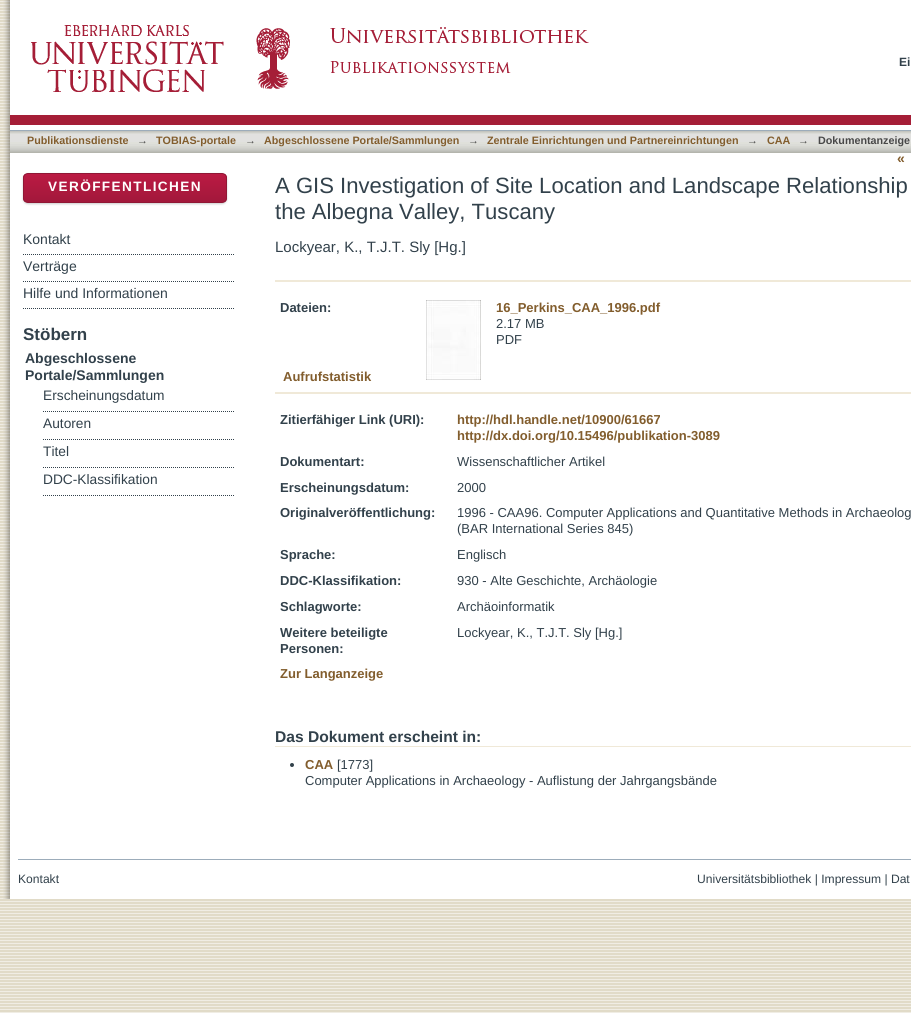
#include <cairo/cairo.h>
#include <math.h>
#include <stddef.h>


static void draw_spaced(cairo_t *cr, double x, double y, const char *s, double letter, double word) {
  cairo_move_to(cr, x, y);
  while (*s) {
    char ch[5] = {0};
    int n = 0;
    do ch[n++] = *s++; while ((*s & 0xC0) == 0x80);
    cairo_show_text(cr, ch);
    cairo_rel_move_to(cr, letter + word * (*ch == ' '), 0);
  }
}

static void rounded_rect(cairo_t *cr, double x, double y, double w, double h, double r) {
  cairo_new_sub_path(cr);
  cairo_arc(cr, x + w - r, y + h - r, r, 0, M_PI / 2);
  cairo_arc(cr, x + r, y + h - r, r, M_PI / 2, M_PI);
  cairo_arc(cr, x + r, y + r, r, M_PI, 1.5 * M_PI);
  cairo_arc(cr, x + w - r, y + r, r, 1.5 * M_PI, 2 * M_PI);
  cairo_close_path(cr);
}

static void draw_shadow(cairo_t *cr, double x, double y, double w, double h, double r, double blur, double alpha) {
  cairo_push_group_with_content(cr, CAIRO_CONTENT_ALPHA);
  cairo_set_operator(cr, CAIRO_OPERATOR_SOURCE);
  for (int i = 15; i >= -15 && fmin(w, h) + blur * i / 3 > 0; i -= 2) {
    double e = blur * i / 6;
    cairo_set_source_rgba(cr, 0, 0, 0, alpha * erfc((i - 1) / 8.5) / 2);
    rounded_rect(cr, x - e, y - e, w + 2 * e, h + 2 * e, fmax(0, fmin(r + e + blur * .6, fmin(w, h) / 2 + e)));
    cairo_fill(cr);
  }
  cairo_pattern_t *soft = cairo_pop_group(cr);
  cairo_mask(cr, soft);
  cairo_pattern_destroy(soft);
}

static void draw_image(cairo_t *cr, const char *path, double x, double y, double w, double h) {
  cairo_surface_t *image = cairo_image_surface_create_from_png(path);
  cairo_save(cr);
  cairo_set_source_surface(cr, image, x, y);
  cairo_rectangle(cr, x, y, w, h);
  cairo_fill(cr);
  cairo_restore(cr);
  cairo_surface_destroy(image);
}

static void draw(cairo_t *cr) {
  cairo_pattern_t *gradient;
  cairo_set_source_rgb(cr, 1, 1, 1);
  cairo_paint(cr);
  draw_image(cr, "images/1.png", 0, 0, 911, 1013);
  draw_image(cr, "images/2.png", 3, 0, 908, 899);
  cairo_set_source_rgb(cr, 165 / 255.0, 30 / 255.0, 55 / 255.0);
  cairo_rectangle(cr, 10, 115, 901, 10);
  cairo_fill(cr);
  draw_image(cr, "images/3.png", 31, 25, 259, 67);
  draw_image(cr, "images/4.png", 330, 27, 259, 46);
  draw_image(cr, "images/5.png", 10, 131, 901, 22);
  cairo_set_source_rgb(cr, 156 / 255.0, 172 / 255.0, 186 / 255.0);
  cairo_rectangle(cr, 10, 130, 901, 1);
  cairo_fill(cr);
  cairo_set_source_rgb(cr, 0, 0, 0);
  draw_shadow(cr, 23, 174, 204, 30, 5, 1, 0.2);
  cairo_save(cr);
  rounded_rect(cr, 23, 173, 204, 30, 5);
  cairo_clip(cr);
  gradient = cairo_pattern_create_linear(125, 174, 125, 202);
  cairo_pattern_add_color_stop_rgba(gradient, 0, 187 / 255.0, 26 / 255.0, 67 / 255.0, 1);
  cairo_pattern_add_color_stop_rgba(gradient, 1, 162 / 255.0, 24 / 255.0, 59 / 255.0, 1);
  cairo_set_source(cr, gradient);
  cairo_pattern_destroy(gradient);
  cairo_rectangle(cr, 23, 174, 204, 28);
  cairo_fill(cr);
  cairo_restore(cr);
  rounded_rect(cr, 23.5, 173.5, 203, 29, 4.5);
  cairo_set_source_rgb(cr, 144 / 255.0, 23 / 255.0, 53 / 255.0);
  cairo_set_line_width(cr, 1);
  cairo_stroke(cr);
  cairo_new_path(cr);
  cairo_move_to(cr, 23, 254.5);
  cairo_line_to(cr, 235, 254.5);
  cairo_set_source_rgb(cr, 50 / 255.0, 65 / 255.0, 75 / 255.0);
  cairo_set_dash(cr, (double[]){1, 1}, 2, 0);
  cairo_stroke(cr);
  cairo_new_path(cr);
  cairo_move_to(cr, 23, 281.5);
  cairo_line_to(cr, 235, 281.5);
  cairo_stroke(cr);
  cairo_new_path(cr);
  cairo_move_to(cr, 23, 308.5);
  cairo_line_to(cr, 235, 308.5);
  cairo_stroke(cr);
  cairo_new_path(cr);
  cairo_move_to(cr, 43, 411.5);
  cairo_line_to(cr, 235, 411.5);
  cairo_stroke(cr);
  cairo_new_path(cr);
  cairo_move_to(cr, 43, 439.5);
  cairo_line_to(cr, 235, 439.5);
  cairo_stroke(cr);
  cairo_new_path(cr);
  cairo_move_to(cr, 43, 467.5);
  cairo_line_to(cr, 235, 467.5);
  cairo_stroke(cr);
  cairo_new_path(cr);
  cairo_move_to(cr, 43, 495.5);
  cairo_line_to(cr, 235, 495.5);
  cairo_stroke(cr);
  cairo_set_source_rgb(cr, 240 / 255.0, 233 / 255.0, 216 / 255.0);
  cairo_rectangle(cr, 275, 280, 636, 2);
  cairo_fill(cr);
  draw_image(cr, "images/6.png", 426, 300, 55, 80);
  cairo_rectangle(cr, 275, 392, 636, 2);
  cairo_fill(cr);
  cairo_rectangle(cr, 275, 746, 636, 1);
  cairo_fill(cr);
  cairo_set_source_rgb(cr, 50 / 255.0, 65 / 255.0, 75 / 255.0);
  cairo_arc(cr, 292, 765, 2, 0, 2 * M_PI);
  cairo_fill(cr);
  cairo_set_source_rgb(cr, 156 / 255.0, 172 / 255.0, 186 / 255.0);
  cairo_rectangle(cr, 18, 859, 893, 1);
  cairo_fill(cr);
  cairo_select_font_face(cr, "Liberation Sans", CAIRO_FONT_SLANT_NORMAL, CAIRO_FONT_WEIGHT_BOLD);
  cairo_set_font_size(cr, 12);
  cairo_set_source_rgb(cr, 50 / 255.0, 65 / 255.0, 75 / 255.0);
  cairo_move_to(cr, 899, 66);
  cairo_show_text(cr, "Ei");
  cairo_set_font_size(cr, 10.75);
  cairo_set_source_rgb(cr, 130 / 255.0, 93 / 255.0, 45 / 255.0);
  cairo_move_to(cr, 27, 144);
  cairo_show_text(cr, "Publikationsdienste");
  cairo_set_source_rgb(cr, 72 / 255.0, 72 / 255.0, 72 / 255.0);
  cairo_move_to(cr, 137, 144);
  cairo_show_text(cr, "→");
  cairo_set_source_rgb(cr, 130 / 255.0, 93 / 255.0, 45 / 255.0);
  cairo_move_to(cr, 156, 144);
  cairo_show_text(cr, "TOBIAS-portale");
  cairo_set_source_rgb(cr, 72 / 255.0, 72 / 255.0, 72 / 255.0);
  cairo_move_to(cr, 245, 144);
  cairo_show_text(cr, "→");
  cairo_set_source_rgb(cr, 130 / 255.0, 93 / 255.0, 45 / 255.0);
  cairo_move_to(cr, 264, 144);
  cairo_show_text(cr, "Abgeschlossene Portale/Sammlungen");
  cairo_set_source_rgb(cr, 72 / 255.0, 72 / 255.0, 72 / 255.0);
  cairo_move_to(cr, 468, 144);
  cairo_show_text(cr, "→");
  cairo_set_source_rgb(cr, 130 / 255.0, 93 / 255.0, 45 / 255.0);
  cairo_move_to(cr, 487, 144);
  cairo_show_text(cr, "Zentrale Einrichtungen und Partnereinrichtungen");
  cairo_set_source_rgb(cr, 72 / 255.0, 72 / 255.0, 72 / 255.0);
  cairo_move_to(cr, 747, 144);
  cairo_show_text(cr, "→");
  cairo_set_source_rgb(cr, 130 / 255.0, 93 / 255.0, 45 / 255.0);
  cairo_move_to(cr, 767, 144);
  cairo_show_text(cr, "CAA");
  cairo_set_source_rgb(cr, 72 / 255.0, 72 / 255.0, 72 / 255.0);
  cairo_move_to(cr, 798, 144);
  cairo_show_text(cr, "→");
  cairo_move_to(cr, 818, 144);
  cairo_show_text(cr, "Dokumentanzeige");
  cairo_set_font_size(cr, 14);
  cairo_set_source_rgb(cr, 130 / 255.0, 93 / 255.0, 45 / 255.0);
  cairo_move_to(cr, 897, 163);
  cairo_show_text(cr, "«");
  cairo_set_font_size(cr, 13.6);
  cairo_set_source_rgb(cr, 1, 1, 1);
  draw_spaced(cr, 48, 191, "VERÖFFENTLICHEN", 1.4, 0);
  cairo_select_font_face(cr, "Liberation Sans", CAIRO_FONT_SLANT_NORMAL, CAIRO_FONT_WEIGHT_NORMAL);
  cairo_set_font_size(cr, 14);
  cairo_set_source_rgb(cr, 50 / 255.0, 65 / 255.0, 75 / 255.0);
  cairo_move_to(cr, 23, 244);
  cairo_show_text(cr, "Kontakt");
  cairo_move_to(cr, 23, 271);
  cairo_show_text(cr, "Verträge");
  cairo_move_to(cr, 23, 298);
  cairo_show_text(cr, "Hilfe und Informationen");
  cairo_select_font_face(cr, "Liberation Sans", CAIRO_FONT_SLANT_NORMAL, CAIRO_FONT_WEIGHT_BOLD);
  cairo_set_font_size(cr, 17);
  cairo_move_to(cr, 23, 340);
  cairo_show_text(cr, "Stöbern");
  cairo_set_font_size(cr, 14);
  cairo_move_to(cr, 25, 363);
  cairo_show_text(cr, "Abgeschlossene");
  cairo_move_to(cr, 25, 380);
  cairo_show_text(cr, "Portale/Sammlungen");
  cairo_select_font_face(cr, "Liberation Sans", CAIRO_FONT_SLANT_NORMAL, CAIRO_FONT_WEIGHT_NORMAL);
  cairo_set_font_size(cr, 13.75);
  cairo_move_to(cr, 43, 400);
  cairo_show_text(cr, "Erscheinungsdatum");
  cairo_move_to(cr, 43, 428);
  cairo_show_text(cr, "Autoren");
  cairo_move_to(cr, 43, 456);
  cairo_show_text(cr, "Titel");
  cairo_move_to(cr, 43, 484);
  cairo_show_text(cr, "DDC-Klassifikation");
  cairo_set_font_size(cr, 22.1);
  cairo_move_to(cr, 275, 193);
  cairo_show_text(cr, "A GIS Investigation of Site Location and Landscape Relationship");
  cairo_move_to(cr, 275, 219);
  cairo_show_text(cr, "the Albegna Valley, Tuscany");
  cairo_set_font_size(cr, 15);
  cairo_move_to(cr, 275, 252);
  cairo_show_text(cr, "Lockyear, K., T.J.T. Sly [Hg.]");
  cairo_select_font_face(cr, "Liberation Sans", CAIRO_FONT_SLANT_NORMAL, CAIRO_FONT_WEIGHT_BOLD);
  cairo_set_font_size(cr, 13);
  cairo_move_to(cr, 280, 312);
  cairo_show_text(cr, "Dateien:");
  cairo_set_source_rgb(cr, 130 / 255.0, 93 / 255.0, 45 / 255.0);
  cairo_move_to(cr, 496, 312);
  cairo_show_text(cr, "16_Perkins_CAA_1996.pdf");
  cairo_select_font_face(cr, "Liberation Sans", CAIRO_FONT_SLANT_NORMAL, CAIRO_FONT_WEIGHT_NORMAL);
  cairo_set_source_rgb(cr, 50 / 255.0, 65 / 255.0, 75 / 255.0);
  cairo_move_to(cr, 496, 328);
  cairo_show_text(cr, "2.17 MB");
  cairo_move_to(cr, 496, 344);
  cairo_show_text(cr, "PDF");
  cairo_select_font_face(cr, "Liberation Sans", CAIRO_FONT_SLANT_NORMAL, CAIRO_FONT_WEIGHT_BOLD);
  cairo_set_source_rgb(cr, 130 / 255.0, 93 / 255.0, 45 / 255.0);
  cairo_move_to(cr, 283, 381);
  cairo_show_text(cr, "Aufrufstatistik");
  cairo_set_source_rgb(cr, 50 / 255.0, 65 / 255.0, 75 / 255.0);
  cairo_move_to(cr, 280, 424);
  cairo_show_text(cr, "Zitierfähiger Link (URI):");
  cairo_set_source_rgb(cr, 130 / 255.0, 93 / 255.0, 45 / 255.0);
  cairo_move_to(cr, 457, 424);
  cairo_show_text(cr, "http://hdl.handle.net/10900/61667");
  cairo_move_to(cr, 457, 440);
  cairo_show_text(cr, "http://dx.doi.org/10.15496/publikation-3089");
  cairo_set_source_rgb(cr, 50 / 255.0, 65 / 255.0, 75 / 255.0);
  cairo_move_to(cr, 280, 466);
  cairo_show_text(cr, "Dokumentart:");
  cairo_select_font_face(cr, "Liberation Sans", CAIRO_FONT_SLANT_NORMAL, CAIRO_FONT_WEIGHT_NORMAL);
  cairo_move_to(cr, 457, 466);
  cairo_show_text(cr, "Wissenschaftlicher Artikel");
  cairo_select_font_face(cr, "Liberation Sans", CAIRO_FONT_SLANT_NORMAL, CAIRO_FONT_WEIGHT_BOLD);
  cairo_move_to(cr, 280, 492);
  cairo_show_text(cr, "Erscheinungsdatum:");
  cairo_select_font_face(cr, "Liberation Sans", CAIRO_FONT_SLANT_NORMAL, CAIRO_FONT_WEIGHT_NORMAL);
  cairo_move_to(cr, 457, 492);
  cairo_show_text(cr, "2000");
  cairo_select_font_face(cr, "Liberation Sans", CAIRO_FONT_SLANT_NORMAL, CAIRO_FONT_WEIGHT_BOLD);
  cairo_move_to(cr, 280, 517);
  cairo_show_text(cr, "Originalveröffentlichung:");
  cairo_select_font_face(cr, "Liberation Sans", CAIRO_FONT_SLANT_NORMAL, CAIRO_FONT_WEIGHT_NORMAL);
  cairo_move_to(cr, 457, 517);
  cairo_show_text(cr, "1996 - CAA96. Computer Applications and Quantitative Methods in Archaeolog");
  cairo_move_to(cr, 457, 533);
  cairo_show_text(cr, "(BAR International Series 845)");
  cairo_select_font_face(cr, "Liberation Sans", CAIRO_FONT_SLANT_NORMAL, CAIRO_FONT_WEIGHT_BOLD);
  cairo_move_to(cr, 280, 559);
  cairo_show_text(cr, "Sprache:");
  cairo_select_font_face(cr, "Liberation Sans", CAIRO_FONT_SLANT_NORMAL, CAIRO_FONT_WEIGHT_NORMAL);
  cairo_move_to(cr, 457, 559);
  cairo_show_text(cr, "Englisch");
  cairo_select_font_face(cr, "Liberation Sans", CAIRO_FONT_SLANT_NORMAL, CAIRO_FONT_WEIGHT_BOLD);
  cairo_move_to(cr, 280, 585);
  cairo_show_text(cr, "DDC-Klassifikation:");
  cairo_select_font_face(cr, "Liberation Sans", CAIRO_FONT_SLANT_NORMAL, CAIRO_FONT_WEIGHT_NORMAL);
  cairo_move_to(cr, 457, 585);
  cairo_show_text(cr, "930 - Alte Geschichte, Archäologie");
  cairo_select_font_face(cr, "Liberation Sans", CAIRO_FONT_SLANT_NORMAL, CAIRO_FONT_WEIGHT_BOLD);
  cairo_move_to(cr, 280, 611);
  cairo_show_text(cr, "Schlagworte:");
  cairo_select_font_face(cr, "Liberation Sans", CAIRO_FONT_SLANT_NORMAL, CAIRO_FONT_WEIGHT_NORMAL);
  cairo_move_to(cr, 457, 611);
  cairo_show_text(cr, "Archäoinformatik");
  cairo_select_font_face(cr, "Liberation Sans", CAIRO_FONT_SLANT_NORMAL, CAIRO_FONT_WEIGHT_BOLD);
  cairo_move_to(cr, 280, 637);
  cairo_show_text(cr, "Weitere beteiligte");
  cairo_move_to(cr, 280, 653);
  cairo_show_text(cr, "Personen:");
  cairo_select_font_face(cr, "Liberation Sans", CAIRO_FONT_SLANT_NORMAL, CAIRO_FONT_WEIGHT_NORMAL);
  cairo_move_to(cr, 457, 637);
  cairo_show_text(cr, "Lockyear, K., T.J.T. Sly [Hg.]");
  cairo_select_font_face(cr, "Liberation Sans", CAIRO_FONT_SLANT_NORMAL, CAIRO_FONT_WEIGHT_BOLD);
  cairo_set_source_rgb(cr, 130 / 255.0, 93 / 255.0, 45 / 255.0);
  cairo_move_to(cr, 280, 678);
  cairo_show_text(cr, "Zur Langanzeige");
  cairo_set_font_size(cr, 15.6);
  cairo_set_source_rgb(cr, 50 / 255.0, 65 / 255.0, 75 / 255.0);
  cairo_move_to(cr, 275, 742);
  cairo_show_text(cr, "Das Dokument erscheint in:");
  cairo_set_font_size(cr, 13);
  cairo_set_source_rgb(cr, 130 / 255.0, 93 / 255.0, 45 / 255.0);
  cairo_move_to(cr, 305, 769);
  cairo_show_text(cr, "CAA");
  cairo_select_font_face(cr, "Liberation Sans", CAIRO_FONT_SLANT_NORMAL, CAIRO_FONT_WEIGHT_NORMAL);
  cairo_set_source_rgb(cr, 50 / 255.0, 65 / 255.0, 75 / 255.0);
  cairo_move_to(cr, 337, 769);
  cairo_show_text(cr, "[1773]");
  cairo_move_to(cr, 305, 785);
  cairo_show_text(cr, "Computer Applications in Archaeology - Auflistung der Jahrgangsbände");
  cairo_set_font_size(cr, 12.1);
  cairo_move_to(cr, 18, 883);
  cairo_show_text(cr, "Kontakt");
  cairo_move_to(cr, 697, 883);
  cairo_show_text(cr, "Universitätsbibliothek | Impressum | Dat");
}

int main(void) {
  cairo_surface_t *surface = cairo_image_surface_create(CAIRO_FORMAT_RGB24, 911, 1013);
  cairo_t *cr = cairo_create(surface);
  cairo_font_options_t *options = cairo_font_options_create();
  cairo_font_options_set_hint_metrics(options, CAIRO_HINT_METRICS_OFF);
  cairo_font_options_set_hint_style(options, CAIRO_HINT_STYLE_NONE);
  cairo_set_font_options(cr, options);
  cairo_set_miter_limit(cr, 4);
  draw(cr);
  cairo_surface_write_to_png(surface, "out.png");
  cairo_font_options_destroy(options);
  cairo_destroy(cr);
  cairo_surface_destroy(surface);
  return 0;
}
